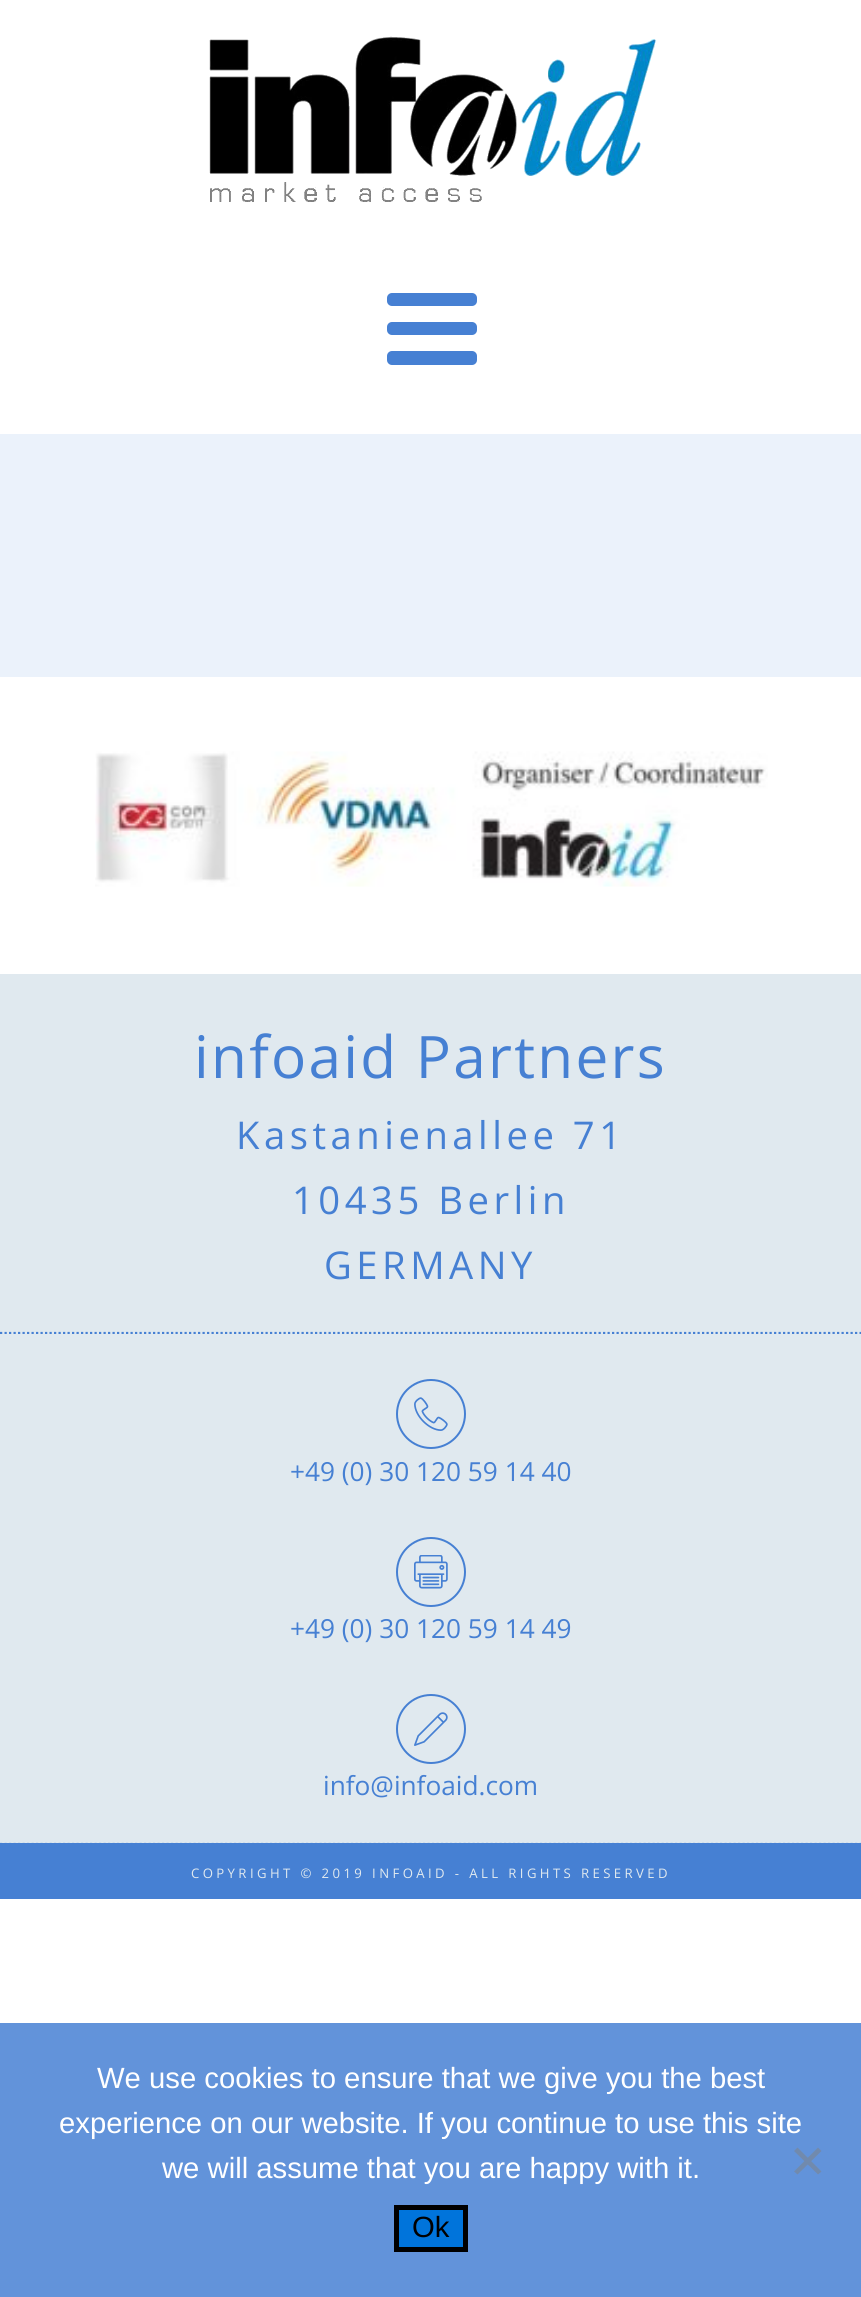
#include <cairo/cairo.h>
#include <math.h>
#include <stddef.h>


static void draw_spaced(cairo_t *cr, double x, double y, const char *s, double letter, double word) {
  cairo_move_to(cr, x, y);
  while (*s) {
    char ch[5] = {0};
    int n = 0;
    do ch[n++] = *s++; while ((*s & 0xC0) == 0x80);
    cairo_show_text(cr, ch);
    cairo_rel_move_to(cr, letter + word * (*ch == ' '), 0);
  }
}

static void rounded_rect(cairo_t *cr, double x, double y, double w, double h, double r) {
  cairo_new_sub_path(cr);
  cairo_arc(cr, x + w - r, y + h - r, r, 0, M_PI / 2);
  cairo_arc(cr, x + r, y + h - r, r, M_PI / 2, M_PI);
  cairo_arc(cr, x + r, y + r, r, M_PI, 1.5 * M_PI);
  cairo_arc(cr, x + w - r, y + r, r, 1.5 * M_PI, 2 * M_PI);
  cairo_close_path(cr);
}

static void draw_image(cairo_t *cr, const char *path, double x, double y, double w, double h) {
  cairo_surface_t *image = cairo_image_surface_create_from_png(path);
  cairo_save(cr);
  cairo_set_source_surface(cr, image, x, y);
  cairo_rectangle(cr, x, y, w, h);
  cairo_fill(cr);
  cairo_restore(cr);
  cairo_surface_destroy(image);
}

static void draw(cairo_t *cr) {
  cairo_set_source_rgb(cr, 1, 1, 1);
  cairo_paint(cr);
  draw_image(cr, "images/1.png", 209, 36, 448, 166);
  cairo_set_source_rgb(cr, 70 / 255.0, 128 / 255.0, 211 / 255.0);
  rounded_rect(cr, 387, 293, 90, 13, 5);
  cairo_fill(cr);
  rounded_rect(cr, 387, 322, 90, 13, 5);
  cairo_fill(cr);
  rounded_rect(cr, 387, 351, 90, 14, 5);
  cairo_fill(cr);
  cairo_set_source_rgb(cr, 235 / 255.0, 242 / 255.0, 251 / 255.0);
  cairo_rectangle(cr, 0, 434, 861, 243);
  cairo_fill(cr);
  draw_image(cr, "images/2.png", 95, 751, 673, 136);
  cairo_set_source_rgb(cr, 224 / 255.0, 233 / 255.0, 239 / 255.0);
  cairo_rectangle(cr, 0, 974, 861, 360);
  cairo_fill(cr);
  cairo_new_path(cr);
  cairo_move_to(cr, 0, 1333);
  cairo_line_to(cr, 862, 1333);
  cairo_set_source_rgb(cr, 70 / 255.0, 128 / 255.0, 211 / 255.0);
  cairo_set_line_width(cr, 2.2);
  cairo_set_dash(cr, (double[]){2.25, 2.25}, 2, 0);
  cairo_stroke(cr);
  cairo_set_source_rgb(cr, 224 / 255.0, 233 / 255.0, 239 / 255.0);
  cairo_rectangle(cr, 0, 1334, 861, 509);
  cairo_fill(cr);
  cairo_arc(cr, 431, 1414, 34, 0, 2 * M_PI);
  cairo_set_source_rgb(cr, 70 / 255.0, 128 / 255.0, 211 / 255.0);
  cairo_set_line_width(cr, 2);
  cairo_set_dash(cr, NULL, 0, 0);
  cairo_stroke(cr);
  draw_image(cr, "images/3.png", 414, 1397, 34, 34);
  cairo_arc(cr, 431, 1572, 34, 0, 2 * M_PI);
  cairo_stroke(cr);
  draw_image(cr, "images/4.png", 414, 1555, 34, 34);
  cairo_arc(cr, 431, 1729, 34, 0, 2 * M_PI);
  cairo_stroke(cr);
  draw_image(cr, "images/5.png", 414, 1712, 34, 34);
  cairo_rectangle(cr, 0, 1843, 861, 56);
  cairo_fill(cr);
  cairo_new_path(cr);
  cairo_move_to(cr, 0, 1844);
  cairo_line_to(cr, 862, 1844);
  cairo_set_line_width(cr, 2.2);
  cairo_set_dash(cr, (double[]){2.25, 2.25}, 2, 0);
  cairo_stroke(cr);
  cairo_set_source_rgb(cr, 98 / 255.0, 147 / 255.0, 218 / 255.0);
  cairo_rectangle(cr, 0, 2023, 861, 274);
  cairo_fill(cr);
  cairo_set_source_rgb(cr, 113 / 255.0, 138 / 255.0, 173 / 255.0);
  cairo_new_path(cr);
  cairo_move_to(cr, 818, 2147.5);
  cairo_line_to(cr, 821.5, 2151);
  cairo_line_to(cr, 797.5, 2174.5);
  cairo_line_to(cr, 794, 2171.5);
  cairo_close_path(cr);
  cairo_fill(cr);
  cairo_new_path(cr);
  cairo_move_to(cr, 794, 2151);
  cairo_line_to(cr, 797.5, 2147.5);
  cairo_line_to(cr, 821.5, 2171.5);
  cairo_line_to(cr, 818, 2174.5);
  cairo_close_path(cr);
  cairo_fill(cr);
  cairo_set_source_rgb(cr, 0, 116 / 255.0, 219 / 255.0);
  cairo_rectangle(cr, 396.5, 2207.5, 69, 42);
  cairo_fill_preserve(cr);
  cairo_set_source_rgb(cr, 0, 0, 0);
  cairo_set_line_width(cr, 5);
  cairo_set_dash(cr, NULL, 0, 0);
  cairo_stroke(cr);
  cairo_select_font_face(cr, "Open Sans", CAIRO_FONT_SLANT_NORMAL, CAIRO_FONT_WEIGHT_NORMAL);
  cairo_set_font_size(cr, 58.5);
  cairo_set_source_rgb(cr, 70 / 255.0, 128 / 255.0, 211 / 255.0);
  draw_spaced(cr, 194, 1078, "infoaid Partners", 2.25, 0);
  cairo_set_font_size(cr, 38.25);
  draw_spaced(cr, 236, 1149, "Kastanienallee 71", 4.5, 0);
  draw_spaced(cr, 292, 1214, "10435 Berlin", 4.5, 0);
  draw_spaced(cr, 324, 1279, "GERMANY", 4.5, 0);
  cairo_set_font_size(cr, 26.25);
  cairo_move_to(cr, 290, 1481);
  cairo_show_text(cr, "+49 (0) 30 120 59 14 40");
  cairo_move_to(cr, 290, 1638);
  cairo_show_text(cr, "+49 (0) 30 120 59 14 49");
  cairo_move_to(cr, 323, 1795);
  cairo_show_text(cr, "info@infoaid.com");
  cairo_set_font_size(cr, 13.15);
  cairo_set_source_rgb(cr, 224 / 255.0, 233 / 255.0, 239 / 255.0);
  draw_spaced(cr, 191, 1878, "COPYRIGHT © 2019 INFOAID - ALL RIGHTS RESERVED", 3.4, 0);
  cairo_select_font_face(cr, "Liberation Sans", CAIRO_FONT_SLANT_NORMAL, CAIRO_FONT_WEIGHT_NORMAL);
  cairo_set_font_size(cr, 29.25);
  cairo_set_source_rgb(cr, 1, 1, 1);
  cairo_move_to(cr, 97, 2088);
  cairo_show_text(cr, "We use cookies to ensure that we give you the best");
  cairo_move_to(cr, 59, 2133);
  cairo_show_text(cr, "experience on our website. If you continue to use this site");
  cairo_move_to(cr, 162, 2178);
  cairo_show_text(cr, "we will assume that you are happy with it.");
  cairo_set_source_rgb(cr, 0, 0, 0);
  cairo_move_to(cr, 412, 2237);
  cairo_show_text(cr, "Ok");
}

int main(void) {
  cairo_surface_t *surface = cairo_image_surface_create(CAIRO_FORMAT_RGB24, 861, 2297);
  cairo_t *cr = cairo_create(surface);
  cairo_font_options_t *options = cairo_font_options_create();
  cairo_font_options_set_hint_metrics(options, CAIRO_HINT_METRICS_OFF);
  cairo_font_options_set_hint_style(options, CAIRO_HINT_STYLE_NONE);
  cairo_set_font_options(cr, options);
  cairo_set_miter_limit(cr, 4);
  draw(cr);
  cairo_surface_write_to_png(surface, "out.png");
  cairo_font_options_destroy(options);
  cairo_destroy(cr);
  cairo_surface_destroy(surface);
  return 0;
}
